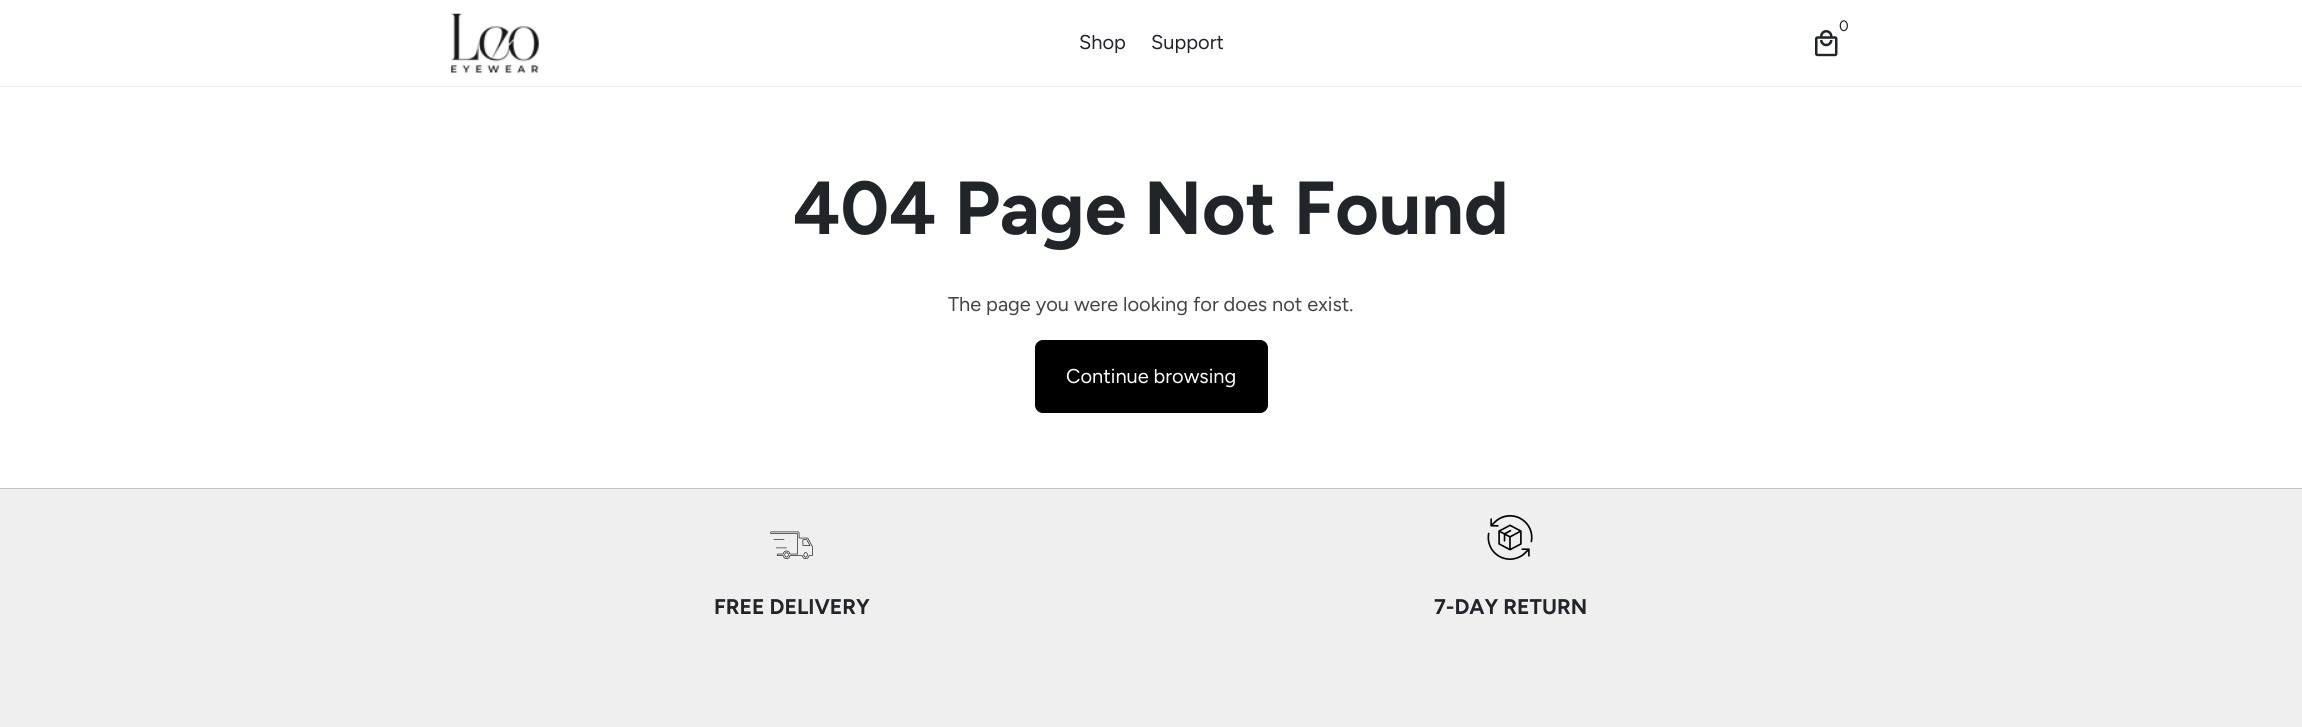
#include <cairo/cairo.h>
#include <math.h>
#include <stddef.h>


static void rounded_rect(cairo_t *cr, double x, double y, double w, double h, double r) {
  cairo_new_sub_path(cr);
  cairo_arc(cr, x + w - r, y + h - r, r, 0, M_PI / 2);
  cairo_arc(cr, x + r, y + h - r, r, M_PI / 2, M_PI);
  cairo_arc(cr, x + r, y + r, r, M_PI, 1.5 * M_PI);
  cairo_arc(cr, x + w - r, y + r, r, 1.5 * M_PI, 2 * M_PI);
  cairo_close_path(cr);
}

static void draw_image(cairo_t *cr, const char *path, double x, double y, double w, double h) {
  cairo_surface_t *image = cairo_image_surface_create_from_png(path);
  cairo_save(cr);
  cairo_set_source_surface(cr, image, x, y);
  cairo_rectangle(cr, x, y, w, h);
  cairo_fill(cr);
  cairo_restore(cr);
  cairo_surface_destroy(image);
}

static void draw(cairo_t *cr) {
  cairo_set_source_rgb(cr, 1, 1, 1);
  cairo_paint(cr);
  cairo_set_source_rgb(cr, 240 / 255.0, 240 / 255.0, 240 / 255.0);
  cairo_rectangle(cr, 0, 86, 2302, 1);
  cairo_fill(cr);
  draw_image(cr, "images/1.png", 451, 13, 88, 60);
  draw_image(cr, "images/2.png", 1815, 30, 23, 27);
  cairo_set_source_rgb(cr, 0, 0, 0);
  rounded_rect(cr, 1035.5, 340.5, 232, 72, 7.5);
  cairo_fill_preserve(cr);
  cairo_set_line_width(cr, 1);
  cairo_stroke(cr);
  cairo_set_source_rgb(cr, 194 / 255.0, 194 / 255.0, 194 / 255.0);
  cairo_rectangle(cr, 0, 488, 2302, 1);
  cairo_fill(cr);
  cairo_set_source_rgb(cr, 239 / 255.0, 239 / 255.0, 239 / 255.0);
  cairo_rectangle(cr, 0, 489, 2302, 238);
  cairo_fill(cr);
  draw_image(cr, "images/3.png", 770, 531, 43, 29);
  draw_image(cr, "images/4.png", 1487, 515, 46, 45);
  cairo_select_font_face(cr, "Figtree", CAIRO_FONT_SLANT_NORMAL, CAIRO_FONT_WEIGHT_NORMAL);
  cairo_set_font_size(cr, 15);
  cairo_set_source_rgb(cr, 33 / 255.0, 37 / 255.0, 41 / 255.0);
  cairo_move_to(cr, 1839, 31);
  cairo_show_text(cr, "0");
  cairo_set_font_size(cr, 20);
  cairo_move_to(cr, 1079, 49);
  cairo_show_text(cr, "Shop");
  cairo_move_to(cr, 1151, 49);
  cairo_show_text(cr, "Support");
  cairo_select_font_face(cr, "Figtree", CAIRO_FONT_SLANT_NORMAL, CAIRO_FONT_WEIGHT_BOLD);
  cairo_set_font_size(cr, 75);
  cairo_move_to(cr, 793, 234);
  cairo_show_text(cr, "404 Page Not Found");
  cairo_select_font_face(cr, "Figtree", CAIRO_FONT_SLANT_NORMAL, CAIRO_FONT_WEIGHT_NORMAL);
  cairo_set_font_size(cr, 20);
  cairo_set_source_rgb(cr, 68 / 255.0, 68 / 255.0, 68 / 255.0);
  cairo_move_to(cr, 948, 311);
  cairo_show_text(cr, "The page you were looking for does not exist.");
  cairo_set_source_rgb(cr, 1, 1, 1);
  cairo_move_to(cr, 1066, 383);
  cairo_show_text(cr, "Continue browsing");
  cairo_select_font_face(cr, "Figtree", CAIRO_FONT_SLANT_NORMAL, CAIRO_FONT_WEIGHT_BOLD);
  cairo_set_font_size(cr, 21.25);
  cairo_set_source_rgb(cr, 33 / 255.0, 37 / 255.0, 41 / 255.0);
  cairo_move_to(cr, 714, 614);
  cairo_show_text(cr, "FREE DELIVERY");
  cairo_move_to(cr, 1434, 614);
  cairo_show_text(cr, "7-DAY RETURN");
}

int main(void) {
  cairo_surface_t *surface = cairo_image_surface_create(CAIRO_FORMAT_RGB24, 2302, 727);
  cairo_t *cr = cairo_create(surface);
  cairo_font_options_t *options = cairo_font_options_create();
  cairo_font_options_set_hint_metrics(options, CAIRO_HINT_METRICS_OFF);
  cairo_font_options_set_hint_style(options, CAIRO_HINT_STYLE_NONE);
  cairo_set_font_options(cr, options);
  cairo_set_miter_limit(cr, 4);
  draw(cr);
  cairo_surface_write_to_png(surface, "out.png");
  cairo_font_options_destroy(options);
  cairo_destroy(cr);
  cairo_surface_destroy(surface);
  return 0;
}
